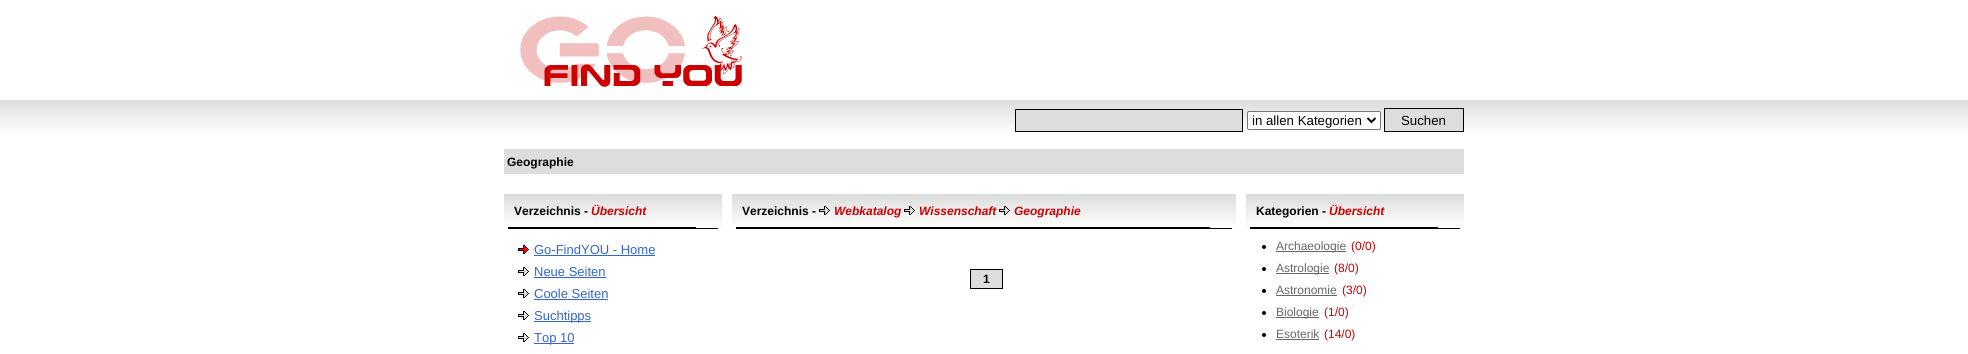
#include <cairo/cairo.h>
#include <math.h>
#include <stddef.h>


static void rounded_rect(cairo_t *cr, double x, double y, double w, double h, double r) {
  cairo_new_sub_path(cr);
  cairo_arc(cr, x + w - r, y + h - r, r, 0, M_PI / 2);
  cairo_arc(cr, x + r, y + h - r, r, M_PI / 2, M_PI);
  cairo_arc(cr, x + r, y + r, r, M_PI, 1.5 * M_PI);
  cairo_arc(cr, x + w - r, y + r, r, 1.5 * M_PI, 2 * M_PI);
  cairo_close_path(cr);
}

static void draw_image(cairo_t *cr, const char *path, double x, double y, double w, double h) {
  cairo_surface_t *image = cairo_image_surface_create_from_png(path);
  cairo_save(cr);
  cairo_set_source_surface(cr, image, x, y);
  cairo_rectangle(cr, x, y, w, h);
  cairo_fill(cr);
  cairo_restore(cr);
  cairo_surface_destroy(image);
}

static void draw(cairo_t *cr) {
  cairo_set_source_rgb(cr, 1, 1, 1);
  cairo_paint(cr);
  draw_image(cr, "images/1.png", 0, 100, 1968, 32);
  draw_image(cr, "images/2.png", 520, 16, 222, 71);
  cairo_set_source_rgb(cr, 222 / 255.0, 221 / 255.0, 221 / 255.0);
  cairo_rectangle(cr, 1015.5, 109.5, 227, 22);
  cairo_fill_preserve(cr);
  cairo_set_source_rgb(cr, 0, 0, 0);
  cairo_set_line_width(cr, 1);
  cairo_stroke(cr);
  cairo_set_source_rgb(cr, 1, 1, 1);
  rounded_rect(cr, 1247.5, 111.5, 133, 18, 1.5);
  cairo_fill_preserve(cr);
  cairo_set_source_rgb(cr, 118 / 255.0, 118 / 255.0, 118 / 255.0);
  cairo_stroke(cr);
  cairo_new_path(cr);
  cairo_move_to(cr, 1367.5, 118);
  cairo_line_to(cr, 1371.5, 122);
  cairo_line_to(cr, 1375.5, 118);
  cairo_set_source_rgb(cr, 0, 0, 0);
  cairo_set_line_width(cr, 2);
  cairo_stroke(cr);
  cairo_set_source_rgb(cr, 222 / 255.0, 221 / 255.0, 221 / 255.0);
  cairo_rectangle(cr, 1384.5, 108.5, 79, 23);
  cairo_fill_preserve(cr);
  cairo_set_source_rgb(cr, 0, 0, 0);
  cairo_set_line_width(cr, 1);
  cairo_stroke(cr);
  cairo_set_source_rgb(cr, 222 / 255.0, 221 / 255.0, 221 / 255.0);
  cairo_rectangle(cr, 504, 149, 960, 25);
  cairo_fill(cr);
  draw_image(cr, "images/3.png", 504, 194, 218, 35);
  draw_image(cr, "images/4.png", 518, 245, 11, 9);
  cairo_set_source_rgb(cr, 51 / 255.0, 102 / 255.0, 204 / 255.0);
  cairo_rectangle(cr, 534, 255, 121, 1);
  cairo_fill(cr);
  draw_image(cr, "images/5.png", 518, 267, 11, 9);
  cairo_rectangle(cr, 534, 277, 72, 1);
  cairo_fill(cr);
  draw_image(cr, "images/5.png", 518, 289, 11, 9);
  cairo_rectangle(cr, 534, 299, 74, 1);
  cairo_fill(cr);
  draw_image(cr, "images/5.png", 518, 311, 11, 9);
  cairo_rectangle(cr, 534, 321, 57, 1);
  cairo_fill(cr);
  draw_image(cr, "images/6.png", 518, 333, 11, 9);
  cairo_rectangle(cr, 534, 343, 40, 1);
  cairo_fill(cr);
  draw_image(cr, "images/7.png", 732, 194, 504, 35);
  draw_image(cr, "images/8.png", 819, 206, 11, 9);
  draw_image(cr, "images/8.png", 904, 206, 11, 9);
  draw_image(cr, "images/8.png", 999, 206, 11, 9);
  cairo_set_source_rgb(cr, 222 / 255.0, 221 / 255.0, 221 / 255.0);
  cairo_rectangle(cr, 970.5, 269.5, 32, 19);
  cairo_fill_preserve(cr);
  cairo_set_source_rgb(cr, 0, 0, 0);
  cairo_stroke(cr);
  draw_image(cr, "images/3.png", 1246, 194, 218, 35);
  cairo_arc(cr, 1264, 247, 2, 0, 2 * M_PI);
  cairo_fill(cr);
  cairo_set_source_rgb(cr, 102 / 255.0, 102 / 255.0, 102 / 255.0);
  cairo_rectangle(cr, 1276, 251, 70, 1);
  cairo_fill(cr);
  cairo_set_source_rgb(cr, 0, 0, 0);
  cairo_arc(cr, 1264, 269, 2, 0, 2 * M_PI);
  cairo_fill(cr);
  cairo_set_source_rgb(cr, 102 / 255.0, 102 / 255.0, 102 / 255.0);
  cairo_rectangle(cr, 1276, 273, 53, 1);
  cairo_fill(cr);
  cairo_set_source_rgb(cr, 0, 0, 0);
  cairo_arc(cr, 1264, 291, 2, 0, 2 * M_PI);
  cairo_fill(cr);
  cairo_set_source_rgb(cr, 102 / 255.0, 102 / 255.0, 102 / 255.0);
  cairo_rectangle(cr, 1276, 295, 61, 1);
  cairo_fill(cr);
  cairo_set_source_rgb(cr, 0, 0, 0);
  cairo_arc(cr, 1264, 313, 2, 0, 2 * M_PI);
  cairo_fill(cr);
  cairo_set_source_rgb(cr, 102 / 255.0, 102 / 255.0, 102 / 255.0);
  cairo_rectangle(cr, 1276, 317, 43, 1);
  cairo_fill(cr);
  cairo_set_source_rgb(cr, 0, 0, 0);
  cairo_arc(cr, 1264, 335, 2, 0, 2 * M_PI);
  cairo_fill(cr);
  cairo_set_source_rgb(cr, 102 / 255.0, 102 / 255.0, 102 / 255.0);
  cairo_rectangle(cr, 1276, 339, 43, 1);
  cairo_fill(cr);
  cairo_select_font_face(cr, "Liberation Sans", CAIRO_FONT_SLANT_NORMAL, CAIRO_FONT_WEIGHT_NORMAL);
  cairo_set_font_size(cr, 13.25);
  cairo_set_source_rgb(cr, 0, 0, 0);
  cairo_move_to(cr, 1252, 125);
  cairo_show_text(cr, "in allen Kategorien");
  cairo_move_to(cr, 1401, 125);
  cairo_show_text(cr, "Suchen");
  cairo_select_font_face(cr, "Liberation Sans", CAIRO_FONT_SLANT_NORMAL, CAIRO_FONT_WEIGHT_BOLD);
  cairo_set_font_size(cr, 12);
  cairo_move_to(cr, 507, 166);
  cairo_show_text(cr, "Geographie");
  cairo_move_to(cr, 514, 215);
  cairo_show_text(cr, "Verzeichnis -");
  cairo_select_font_face(cr, "Liberation Sans", CAIRO_FONT_SLANT_ITALIC, CAIRO_FONT_WEIGHT_BOLD);
  cairo_set_source_rgb(cr, 204 / 255.0, 0, 0);
  cairo_move_to(cr, 591, 215);
  cairo_show_text(cr, "Übersicht");
  cairo_select_font_face(cr, "Liberation Sans", CAIRO_FONT_SLANT_NORMAL, CAIRO_FONT_WEIGHT_NORMAL);
  cairo_set_font_size(cr, 13);
  cairo_set_source_rgb(cr, 51 / 255.0, 102 / 255.0, 204 / 255.0);
  cairo_move_to(cr, 534, 254);
  cairo_show_text(cr, "Go-FindYOU - Home");
  cairo_move_to(cr, 534, 276);
  cairo_show_text(cr, "Neue Seiten");
  cairo_move_to(cr, 534, 298);
  cairo_show_text(cr, "Coole Seiten");
  cairo_move_to(cr, 534, 320);
  cairo_show_text(cr, "Suchtipps");
  cairo_move_to(cr, 534, 342);
  cairo_show_text(cr, "Top 10");
  cairo_select_font_face(cr, "Liberation Sans", CAIRO_FONT_SLANT_NORMAL, CAIRO_FONT_WEIGHT_BOLD);
  cairo_set_font_size(cr, 12);
  cairo_set_source_rgb(cr, 0, 0, 0);
  cairo_move_to(cr, 742, 215);
  cairo_show_text(cr, "Verzeichnis -");
  cairo_select_font_face(cr, "Liberation Sans", CAIRO_FONT_SLANT_ITALIC, CAIRO_FONT_WEIGHT_BOLD);
  cairo_set_source_rgb(cr, 204 / 255.0, 0, 0);
  cairo_move_to(cr, 834, 215);
  cairo_show_text(cr, "Webkatalog");
  cairo_move_to(cr, 919, 215);
  cairo_show_text(cr, "Wissenschaft");
  cairo_move_to(cr, 1014, 215);
  cairo_show_text(cr, "Geographie");
  cairo_select_font_face(cr, "Liberation Sans", CAIRO_FONT_SLANT_NORMAL, CAIRO_FONT_WEIGHT_BOLD);
  cairo_set_source_rgb(cr, 0, 0, 0);
  cairo_move_to(cr, 983, 283);
  cairo_show_text(cr, "1");
  cairo_move_to(cr, 1256, 215);
  cairo_show_text(cr, "Kategorien -");
  cairo_select_font_face(cr, "Liberation Sans", CAIRO_FONT_SLANT_ITALIC, CAIRO_FONT_WEIGHT_BOLD);
  cairo_set_source_rgb(cr, 204 / 255.0, 0, 0);
  cairo_move_to(cr, 1329, 215);
  cairo_show_text(cr, "Übersicht");
  cairo_select_font_face(cr, "Liberation Sans", CAIRO_FONT_SLANT_NORMAL, CAIRO_FONT_WEIGHT_NORMAL);
  cairo_set_source_rgb(cr, 102 / 255.0, 102 / 255.0, 102 / 255.0);
  cairo_move_to(cr, 1276, 250);
  cairo_show_text(cr, "Archaeologie");
  cairo_set_source_rgb(cr, 204 / 255.0, 0, 0);
  cairo_move_to(cr, 1351, 250);
  cairo_show_text(cr, "(0/0)");
  cairo_set_source_rgb(cr, 102 / 255.0, 102 / 255.0, 102 / 255.0);
  cairo_move_to(cr, 1276, 272);
  cairo_show_text(cr, "Astrologie");
  cairo_set_source_rgb(cr, 204 / 255.0, 0, 0);
  cairo_move_to(cr, 1334, 272);
  cairo_show_text(cr, "(8/0)");
  cairo_set_source_rgb(cr, 102 / 255.0, 102 / 255.0, 102 / 255.0);
  cairo_move_to(cr, 1276, 294);
  cairo_show_text(cr, "Astronomie");
  cairo_set_source_rgb(cr, 204 / 255.0, 0, 0);
  cairo_move_to(cr, 1342, 294);
  cairo_show_text(cr, "(3/0)");
  cairo_set_source_rgb(cr, 102 / 255.0, 102 / 255.0, 102 / 255.0);
  cairo_move_to(cr, 1276, 316);
  cairo_show_text(cr, "Biologie");
  cairo_set_source_rgb(cr, 204 / 255.0, 0, 0);
  cairo_move_to(cr, 1324, 316);
  cairo_show_text(cr, "(1/0)");
  cairo_set_source_rgb(cr, 102 / 255.0, 102 / 255.0, 102 / 255.0);
  cairo_move_to(cr, 1276, 338);
  cairo_show_text(cr, "Esoterik");
  cairo_set_source_rgb(cr, 204 / 255.0, 0, 0);
  cairo_move_to(cr, 1324, 338);
  cairo_show_text(cr, "(14/0)");
}

int main(void) {
  cairo_surface_t *surface = cairo_image_surface_create(CAIRO_FORMAT_RGB24, 1968, 354);
  cairo_t *cr = cairo_create(surface);
  cairo_font_options_t *options = cairo_font_options_create();
  cairo_font_options_set_hint_metrics(options, CAIRO_HINT_METRICS_OFF);
  cairo_font_options_set_hint_style(options, CAIRO_HINT_STYLE_NONE);
  cairo_set_font_options(cr, options);
  cairo_set_miter_limit(cr, 4);
  draw(cr);
  cairo_surface_write_to_png(surface, "out.png");
  cairo_font_options_destroy(options);
  cairo_destroy(cr);
  cairo_surface_destroy(surface);
  return 0;
}
